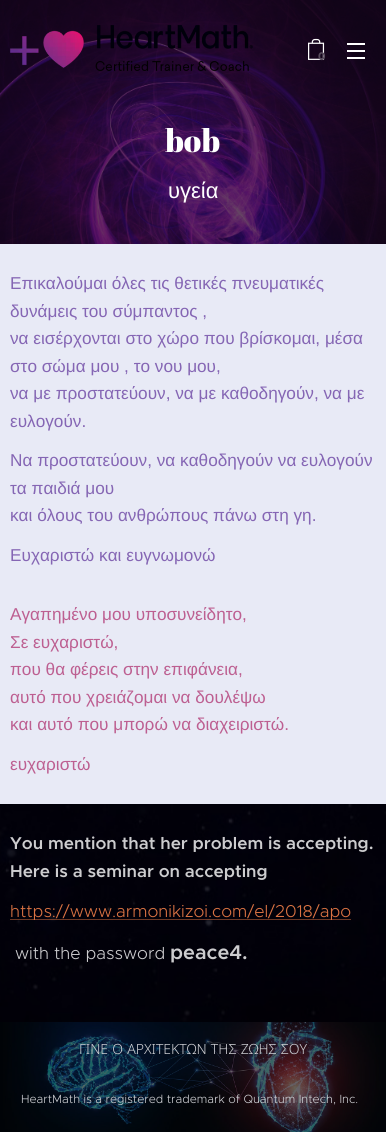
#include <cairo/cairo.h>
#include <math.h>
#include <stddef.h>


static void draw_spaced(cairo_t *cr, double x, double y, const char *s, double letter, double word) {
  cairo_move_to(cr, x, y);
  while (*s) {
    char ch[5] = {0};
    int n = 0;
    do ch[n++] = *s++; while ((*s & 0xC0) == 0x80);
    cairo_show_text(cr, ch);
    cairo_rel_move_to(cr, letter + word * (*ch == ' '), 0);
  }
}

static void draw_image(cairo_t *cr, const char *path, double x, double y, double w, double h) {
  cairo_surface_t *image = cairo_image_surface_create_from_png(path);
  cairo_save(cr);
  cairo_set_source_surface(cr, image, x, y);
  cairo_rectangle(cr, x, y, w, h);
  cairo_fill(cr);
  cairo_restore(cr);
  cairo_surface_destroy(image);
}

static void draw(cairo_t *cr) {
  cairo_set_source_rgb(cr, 1, 1, 1);
  cairo_paint(cr);
  draw_image(cr, "images/3.png", 0, 0, 386, 244);
  draw_image(cr, "images/1.png", 10, 25, 243, 46);
  draw_image(cr, "images/2.png", 308, 38, 17, 22);
  cairo_set_source_rgb(cr, 1, 1, 1);
  cairo_rectangle(cr, 347, 50, 18, 2);
  cairo_fill(cr);
  cairo_rectangle(cr, 347, 43, 18, 2);
  cairo_fill(cr);
  cairo_rectangle(cr, 347, 57, 18, 2);
  cairo_fill(cr);
  cairo_set_source_rgb(cr, 232 / 255.0, 234 / 255.0, 246 / 255.0);
  cairo_rectangle(cr, 0, 244, 386, 560);
  cairo_fill(cr);
  draw_image(cr, "images/4.png", 0, 804, 386, 218);
  cairo_set_source_rgba(cr, 219 / 255.0, 115 / 255.0, 67 / 255.0, 0.5);
  cairo_rectangle(cr, 10, 919, 341, 1);
  cairo_fill(cr);
  draw_image(cr, "images/5.png", 0, 1022, 386, 110);
  cairo_select_font_face(cr, "Montserrat", CAIRO_FONT_SLANT_NORMAL, CAIRO_FONT_WEIGHT_BOLD);
  cairo_set_font_size(cr, 11);
  cairo_set_source_rgb(cr, 87 / 255.0, 75 / 255.0, 92 / 255.0);
  cairo_move_to(cr, 318, 60);
  cairo_show_text(cr, "0");
  cairo_select_font_face(cr, "Abril Fatface", CAIRO_FONT_SLANT_NORMAL, CAIRO_FONT_WEIGHT_NORMAL);
  cairo_set_font_size(cr, 32);
  cairo_set_source_rgb(cr, 1, 1, 1);
  cairo_move_to(cr, 165, 152);
  cairo_show_text(cr, "bob");
  cairo_select_font_face(cr, "Liberation Sans", CAIRO_FONT_SLANT_NORMAL, CAIRO_FONT_WEIGHT_NORMAL);
  cairo_set_font_size(cr, 22);
  cairo_move_to(cr, 168, 198);
  cairo_show_text(cr, "υγεία");
  cairo_set_font_size(cr, 17.2);
  cairo_set_source_rgb(cr, 133 / 255.0, 102 / 255.0, 180 / 255.0);
  cairo_move_to(cr, 10, 289);
  cairo_show_text(cr, "Επικαλούμαι όλες τις θετικές πνευματικές");
  cairo_move_to(cr, 10, 317);
  cairo_show_text(cr, "δυνάμεις του σύμπαντος ,");
  cairo_move_to(cr, 10, 344);
  cairo_show_text(cr, "να εισέρχονται στο χώρο που βρίσκομαι, μέσα");
  cairo_move_to(cr, 10, 372);
  cairo_show_text(cr, "στο σώμα μου , το νου μου,");
  cairo_move_to(cr, 10, 399);
  cairo_show_text(cr, "να με προστατεύουν, να με καθοδηγούν, να με");
  cairo_move_to(cr, 10, 427);
  cairo_show_text(cr, "ευλογούν.");
  cairo_move_to(cr, 10, 466);
  cairo_show_text(cr, "Να προστατεύουν, να καθοδηγούν να ευλογούν");
  cairo_move_to(cr, 10, 494);
  cairo_show_text(cr, "τα παιδιά μου");
  cairo_move_to(cr, 10, 521);
  cairo_show_text(cr, "και όλους του ανθρώπους πάνω στη γη.");
  cairo_move_to(cr, 10, 561);
  cairo_show_text(cr, "Ευχαριστώ και ευγνωμονώ");
  cairo_set_source_rgb(cr, 189 / 255.0, 95 / 255.0, 145 / 255.0);
  cairo_move_to(cr, 10, 620);
  cairo_show_text(cr, "Αγαπημένο μου υποσυνείδητο,");
  cairo_move_to(cr, 10, 648);
  cairo_show_text(cr, "Σε ευχαριστώ,");
  cairo_move_to(cr, 10, 675);
  cairo_show_text(cr, "που θα φέρεις στην επιφάνεια,");
  cairo_move_to(cr, 10, 703);
  cairo_show_text(cr, "αυτό που χρειάζομαι να δουλέψω");
  cairo_move_to(cr, 10, 730);
  cairo_show_text(cr, "και αυτό που μπορώ να διαχειριστώ.");
  cairo_move_to(cr, 10, 770);
  cairo_show_text(cr, "ευχαριστώ");
  cairo_select_font_face(cr, "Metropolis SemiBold", CAIRO_FONT_SLANT_NORMAL, CAIRO_FONT_WEIGHT_NORMAL);
  cairo_set_source_rgb(cr, 204 / 255.0, 204 / 255.0, 206 / 255.0);
  cairo_move_to(cr, 10, 849);
  cairo_show_text(cr, "You mention that her problem is accepting.");
  cairo_move_to(cr, 10, 877);
  cairo_show_text(cr, "Here is a seminar on accepting");
  cairo_select_font_face(cr, "Metropolis Light", CAIRO_FONT_SLANT_NORMAL, CAIRO_FONT_WEIGHT_NORMAL);
  cairo_set_source_rgb(cr, 219 / 255.0, 115 / 255.0, 67 / 255.0);
  cairo_move_to(cr, 10, 917);
  cairo_show_text(cr, "https://www.armonikizoi.com/el/2018/apo");
  cairo_set_source_rgb(cr, 204 / 255.0, 204 / 255.0, 206 / 255.0);
  cairo_move_to(cr, 15, 959);
  cairo_show_text(cr, "with the password");
  cairo_select_font_face(cr, "Metropolis SemiBold", CAIRO_FONT_SLANT_NORMAL, CAIRO_FONT_WEIGHT_NORMAL);
  cairo_set_font_size(cr, 20);
  cairo_move_to(cr, 170, 959);
  cairo_show_text(cr, "peace4.");
  cairo_select_font_face(cr, "Noto Sans Light", CAIRO_FONT_SLANT_NORMAL, CAIRO_FONT_WEIGHT_NORMAL);
  cairo_set_font_size(cr, 14);
  cairo_set_source_rgb(cr, 208 / 255.0, 209 / 255.0, 213 / 255.0);
  draw_spaced(cr, 79, 1054, "ΓΙΝΕ Ο ΑΡΧΙΤΕΚΤΩΝ ΤΗΣ ΖΩΗΣ ΣΟΥ", 0, 0.5);
  cairo_select_font_face(cr, "Metropolis Light", CAIRO_FONT_SLANT_NORMAL, CAIRO_FONT_WEIGHT_NORMAL);
  cairo_set_font_size(cr, 11.9);
  cairo_move_to(cr, 21, 1103);
  cairo_show_text(cr, "HeartMath is a registered trademark of Quantum Intech, Inc.");
}

int main(void) {
  cairo_surface_t *surface = cairo_image_surface_create(CAIRO_FORMAT_RGB24, 386, 1132);
  cairo_t *cr = cairo_create(surface);
  cairo_font_options_t *options = cairo_font_options_create();
  cairo_font_options_set_hint_metrics(options, CAIRO_HINT_METRICS_OFF);
  cairo_font_options_set_hint_style(options, CAIRO_HINT_STYLE_NONE);
  cairo_set_font_options(cr, options);
  cairo_set_miter_limit(cr, 4);
  draw(cr);
  cairo_surface_write_to_png(surface, "out.png");
  cairo_font_options_destroy(options);
  cairo_destroy(cr);
  cairo_surface_destroy(surface);
  return 0;
}
